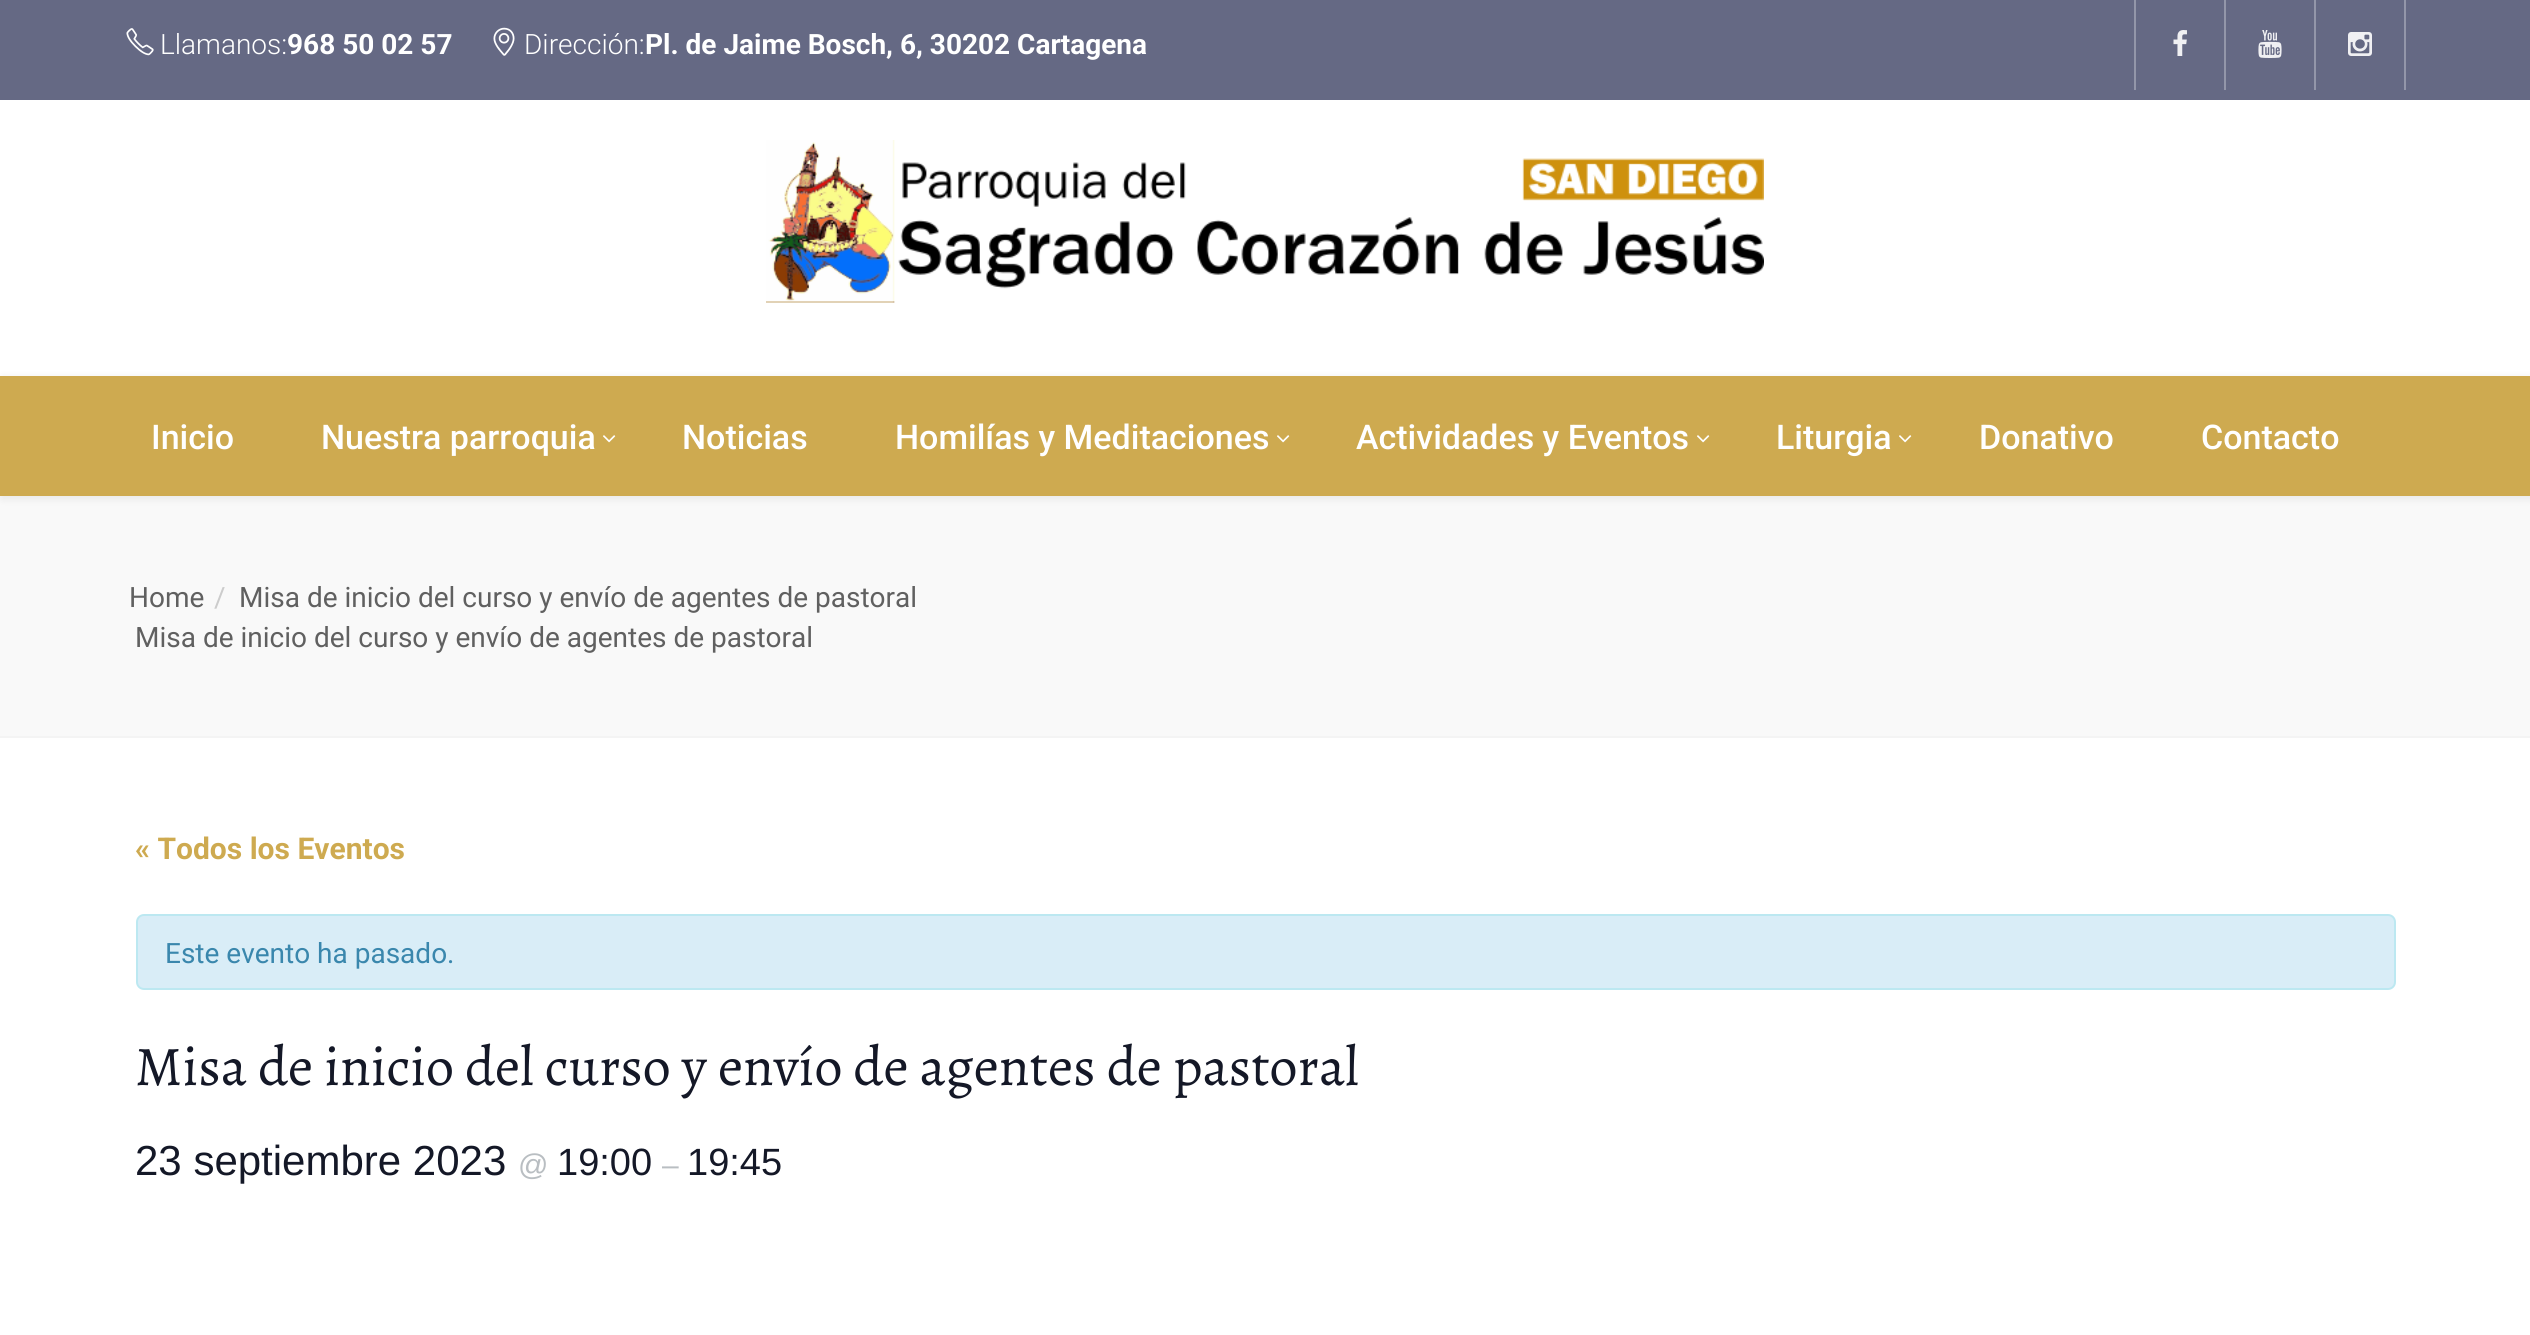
#include <cairo/cairo.h>
#include <math.h>
#include <stddef.h>


static void rounded_rect(cairo_t *cr, double x, double y, double w, double h, double r) {
  cairo_new_sub_path(cr);
  cairo_arc(cr, x + w - r, y + h - r, r, 0, M_PI / 2);
  cairo_arc(cr, x + r, y + h - r, r, M_PI / 2, M_PI);
  cairo_arc(cr, x + r, y + r, r, M_PI, 1.5 * M_PI);
  cairo_arc(cr, x + w - r, y + r, r, 1.5 * M_PI, 2 * M_PI);
  cairo_close_path(cr);
}

static void draw_shadow(cairo_t *cr, double x, double y, double w, double h, double r, double blur, double alpha) {
  cairo_push_group_with_content(cr, CAIRO_CONTENT_ALPHA);
  cairo_set_operator(cr, CAIRO_OPERATOR_SOURCE);
  for (int i = 15; i >= -15 && fmin(w, h) + blur * i / 3 > 0; i -= 2) {
    double e = blur * i / 6;
    cairo_set_source_rgba(cr, 0, 0, 0, alpha * erfc((i - 1) / 8.5) / 2);
    rounded_rect(cr, x - e, y - e, w + 2 * e, h + 2 * e, fmax(0, fmin(r + e + blur * .6, fmin(w, h) / 2 + e)));
    cairo_fill(cr);
  }
  cairo_pattern_t *soft = cairo_pop_group(cr);
  cairo_mask(cr, soft);
  cairo_pattern_destroy(soft);
}

static void draw_image(cairo_t *cr, const char *path, double x, double y, double w, double h) {
  cairo_surface_t *image = cairo_image_surface_create_from_png(path);
  cairo_save(cr);
  cairo_set_source_surface(cr, image, x, y);
  cairo_rectangle(cr, x, y, w, h);
  cairo_fill(cr);
  cairo_restore(cr);
  cairo_surface_destroy(image);
}

static void draw(cairo_t *cr) {
  cairo_set_source_rgb(cr, 1, 1, 1);
  cairo_paint(cr);
  cairo_set_source_rgb(cr, 101 / 255.0, 105 / 255.0, 132 / 255.0);
  cairo_rectangle(cr, 0, 0, 2530, 100);
  cairo_fill(cr);
  draw_image(cr, "images/1.png", 126, 28, 28, 28);
  draw_image(cr, "images/2.png", 493, 27, 22, 29);
  cairo_set_source_rgb(cr, 147 / 255.0, 150 / 255.0, 169 / 255.0);
  cairo_rectangle(cr, 2134, 0, 2, 90);
  cairo_fill(cr);
  draw_image(cr, "images/3.png", 2173, 30, 14, 26);
  cairo_rectangle(cr, 2224, 0, 2, 90);
  cairo_fill(cr);
  draw_image(cr, "images/4.png", 2258, 30, 24, 28);
  cairo_rectangle(cr, 2404, 0, 2, 90);
  cairo_fill(cr);
  cairo_rectangle(cr, 2314, 0, 2, 90);
  cairo_fill(cr);
  draw_image(cr, "images/5.png", 2348, 32, 24, 24);
  draw_image(cr, "images/6.png", 766, 140, 998, 163);
  cairo_set_source_rgb(cr, 249 / 255.0, 249 / 255.0, 249 / 255.0);
  cairo_rectangle(cr, 0, 496, 2530, 240);
  cairo_fill(cr);
  cairo_set_source_rgb(cr, 0, 0, 0);
  draw_shadow(cr, 2, 378, 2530, 120, 0, 5, 0.08);
  cairo_set_source_rgb(cr, 206 / 255.0, 170 / 255.0, 80 / 255.0);
  cairo_rectangle(cr, 0, 376, 2530, 120);
  cairo_fill(cr);
  draw_image(cr, "images/7.png", 603, 435, 13, 8);
  draw_image(cr, "images/7.png", 1277, 435, 13, 8);
  draw_image(cr, "images/7.png", 1697, 435, 13, 8);
  draw_image(cr, "images/7.png", 1899, 435, 13, 8);
  cairo_set_source_rgb(cr, 244 / 255.0, 244 / 255.0, 244 / 255.0);
  cairo_rectangle(cr, 0, 736, 2530, 2);
  cairo_fill(cr);
  cairo_set_source_rgb(cr, 217 / 255.0, 237 / 255.0, 247 / 255.0);
  rounded_rect(cr, 137, 915, 2258, 74, 7);
  cairo_fill_preserve(cr);
  cairo_set_source_rgb(cr, 188 / 255.0, 232 / 255.0, 241 / 255.0);
  cairo_stroke(cr);
  cairo_select_font_face(cr, "Roboto Light", CAIRO_FONT_SLANT_NORMAL, CAIRO_FONT_WEIGHT_NORMAL);
  cairo_set_font_size(cr, 28);
  cairo_set_source_rgb(cr, 1, 1, 1);
  cairo_move_to(cr, 160, 54);
  cairo_show_text(cr, "Llamanos:");
  cairo_select_font_face(cr, "Roboto", CAIRO_FONT_SLANT_NORMAL, CAIRO_FONT_WEIGHT_BOLD);
  cairo_move_to(cr, 287, 54);
  cairo_show_text(cr, "968 50 02 57");
  cairo_select_font_face(cr, "Roboto Light", CAIRO_FONT_SLANT_NORMAL, CAIRO_FONT_WEIGHT_NORMAL);
  cairo_move_to(cr, 524, 54);
  cairo_show_text(cr, "Dirección:");
  cairo_select_font_face(cr, "Roboto", CAIRO_FONT_SLANT_NORMAL, CAIRO_FONT_WEIGHT_BOLD);
  cairo_move_to(cr, 645, 54);
  cairo_show_text(cr, "Pl. de Jaime Bosch, 6, 30202 Cartagena");
  cairo_select_font_face(cr, "Roboto Medium", CAIRO_FONT_SLANT_NORMAL, CAIRO_FONT_WEIGHT_NORMAL);
  cairo_set_font_size(cr, 34);
  cairo_move_to(cr, 151, 449);
  cairo_show_text(cr, "Inicio");
  cairo_move_to(cr, 321, 449);
  cairo_show_text(cr, "Nuestra parroquia");
  cairo_move_to(cr, 682, 449);
  cairo_show_text(cr, "Noticias");
  cairo_move_to(cr, 895, 449);
  cairo_show_text(cr, "Homilías y Meditaciones");
  cairo_move_to(cr, 1356, 449);
  cairo_show_text(cr, "Actividades y Eventos");
  cairo_move_to(cr, 1776, 449);
  cairo_show_text(cr, "Liturgia");
  cairo_move_to(cr, 1979, 449);
  cairo_show_text(cr, "Donativo");
  cairo_move_to(cr, 2201, 449);
  cairo_show_text(cr, "Contacto");
  cairo_select_font_face(cr, "Roboto", CAIRO_FONT_SLANT_NORMAL, CAIRO_FONT_WEIGHT_NORMAL);
  cairo_set_font_size(cr, 28);
  cairo_set_source_rgb(cr, 96 / 255.0, 96 / 255.0, 96 / 255.0);
  cairo_move_to(cr, 129, 607);
  cairo_show_text(cr, "Home");
  cairo_set_source_rgb(cr, 204 / 255.0, 204 / 255.0, 204 / 255.0);
  cairo_move_to(cr, 214, 607);
  cairo_show_text(cr, "/");
  cairo_set_source_rgb(cr, 96 / 255.0, 96 / 255.0, 96 / 255.0);
  cairo_move_to(cr, 239, 607);
  cairo_show_text(cr, "Misa de inicio del curso y envío de agentes de pastoral");
  cairo_move_to(cr, 135, 647);
  cairo_show_text(cr, "Misa de inicio del curso y envío de agentes de pastoral");
  cairo_select_font_face(cr, "Roboto", CAIRO_FONT_SLANT_NORMAL, CAIRO_FONT_WEIGHT_BOLD);
  cairo_set_font_size(cr, 30);
  cairo_set_source_rgb(cr, 206 / 255.0, 170 / 255.0, 80 / 255.0);
  cairo_move_to(cr, 135, 859);
  cairo_show_text(cr, "« Todos los Eventos");
  cairo_select_font_face(cr, "Roboto", CAIRO_FONT_SLANT_NORMAL, CAIRO_FONT_WEIGHT_NORMAL);
  cairo_set_font_size(cr, 28);
  cairo_set_source_rgb(cr, 58 / 255.0, 135 / 255.0, 173 / 255.0);
  cairo_move_to(cr, 165, 963);
  cairo_show_text(cr, "Este evento ha pasado.");
  cairo_select_font_face(cr, "Alegreya", CAIRO_FONT_SLANT_NORMAL, CAIRO_FONT_WEIGHT_NORMAL);
  cairo_set_font_size(cr, 56);
  cairo_set_source_rgb(cr, 20 / 255.0, 24 / 255.0, 39 / 255.0);
  cairo_move_to(cr, 135, 1085);
  cairo_show_text(cr, "Misa de inicio del curso y envío de agentes de pastoral");
  cairo_select_font_face(cr, "Liberation Sans", CAIRO_FONT_SLANT_NORMAL, CAIRO_FONT_WEIGHT_NORMAL);
  cairo_set_font_size(cr, 42);
  cairo_move_to(cr, 135, 1175);
  cairo_show_text(cr, "23 septiembre 2023");
  cairo_set_font_size(cr, 30);
  cairo_set_source_rgb(cr, 185 / 255.0, 190 / 255.0, 194 / 255.0);
  cairo_move_to(cr, 518, 1175);
  cairo_show_text(cr, "@");
  cairo_set_font_size(cr, 38);
  cairo_set_source_rgb(cr, 20 / 255.0, 24 / 255.0, 39 / 255.0);
  cairo_move_to(cr, 557, 1175);
  cairo_show_text(cr, "19:00");
  cairo_set_font_size(cr, 30);
  cairo_set_source_rgb(cr, 185 / 255.0, 190 / 255.0, 194 / 255.0);
  cairo_move_to(cr, 662, 1175);
  cairo_show_text(cr, "–");
  cairo_set_font_size(cr, 38);
  cairo_set_source_rgb(cr, 20 / 255.0, 24 / 255.0, 39 / 255.0);
  cairo_move_to(cr, 687, 1175);
  cairo_show_text(cr, "19:45");
}

int main(void) {
  cairo_surface_t *surface = cairo_image_surface_create(CAIRO_FORMAT_RGB24, 2530, 1335);
  cairo_t *cr = cairo_create(surface);
  cairo_font_options_t *options = cairo_font_options_create();
  cairo_font_options_set_hint_metrics(options, CAIRO_HINT_METRICS_OFF);
  cairo_font_options_set_hint_style(options, CAIRO_HINT_STYLE_NONE);
  cairo_set_font_options(cr, options);
  cairo_set_miter_limit(cr, 4);
  draw(cr);
  cairo_surface_write_to_png(surface, "out.png");
  cairo_font_options_destroy(options);
  cairo_destroy(cr);
  cairo_surface_destroy(surface);
  return 0;
}
